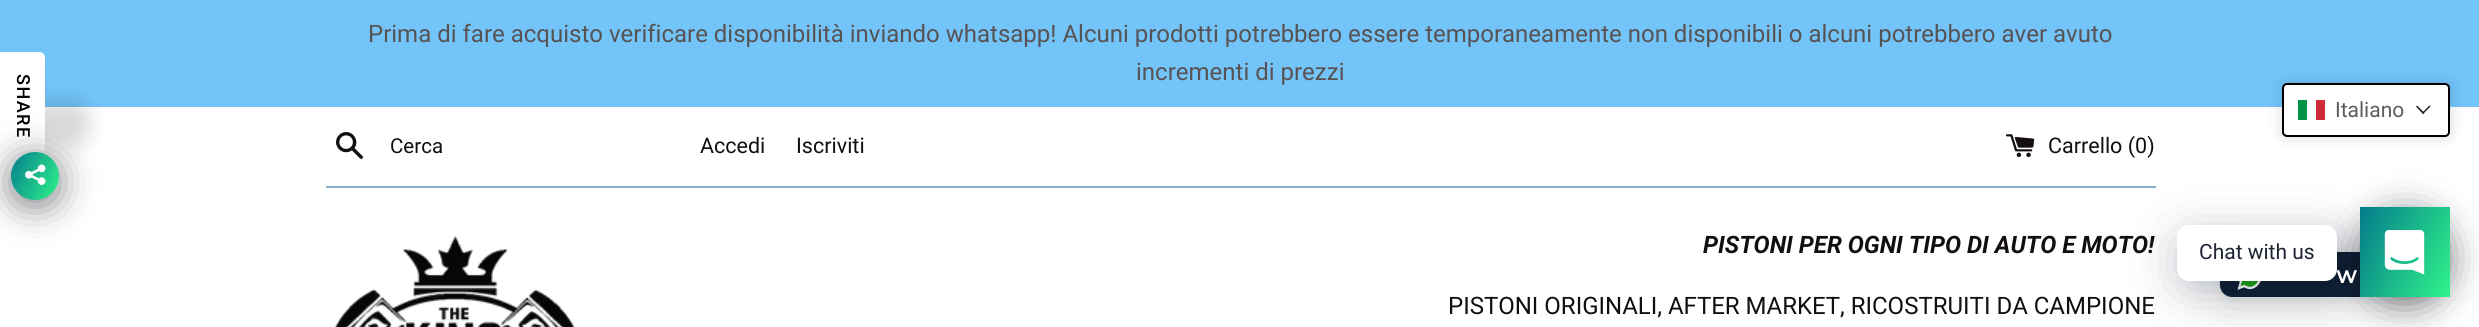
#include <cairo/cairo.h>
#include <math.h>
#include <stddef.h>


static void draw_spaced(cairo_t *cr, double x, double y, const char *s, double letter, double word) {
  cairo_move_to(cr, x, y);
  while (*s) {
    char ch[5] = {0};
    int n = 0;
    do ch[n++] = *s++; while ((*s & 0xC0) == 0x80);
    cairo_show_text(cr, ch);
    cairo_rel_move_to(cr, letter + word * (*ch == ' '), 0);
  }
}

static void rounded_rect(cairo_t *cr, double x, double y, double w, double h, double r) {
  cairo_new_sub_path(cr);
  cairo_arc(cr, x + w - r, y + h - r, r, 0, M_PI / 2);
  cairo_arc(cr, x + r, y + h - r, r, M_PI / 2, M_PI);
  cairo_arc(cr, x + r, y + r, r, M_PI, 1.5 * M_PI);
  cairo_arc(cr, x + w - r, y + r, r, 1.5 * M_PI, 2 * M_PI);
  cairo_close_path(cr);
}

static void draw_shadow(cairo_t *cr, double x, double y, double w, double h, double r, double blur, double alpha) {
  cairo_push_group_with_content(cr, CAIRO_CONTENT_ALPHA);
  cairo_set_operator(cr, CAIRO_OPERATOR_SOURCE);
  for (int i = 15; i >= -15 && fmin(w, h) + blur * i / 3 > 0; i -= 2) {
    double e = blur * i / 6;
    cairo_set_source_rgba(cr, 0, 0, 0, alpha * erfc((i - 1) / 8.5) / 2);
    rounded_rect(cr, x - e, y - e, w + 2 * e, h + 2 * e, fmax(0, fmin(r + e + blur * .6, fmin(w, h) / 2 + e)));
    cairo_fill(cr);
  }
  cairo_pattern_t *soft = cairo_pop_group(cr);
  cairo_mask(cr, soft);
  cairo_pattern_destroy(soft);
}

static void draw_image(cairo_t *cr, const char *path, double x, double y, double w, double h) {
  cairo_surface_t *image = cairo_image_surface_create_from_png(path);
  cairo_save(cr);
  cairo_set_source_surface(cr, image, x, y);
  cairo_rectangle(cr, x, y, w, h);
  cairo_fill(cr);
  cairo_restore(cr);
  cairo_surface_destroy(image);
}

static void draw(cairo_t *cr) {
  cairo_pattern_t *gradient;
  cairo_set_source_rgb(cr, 1, 1, 1);
  cairo_paint(cr);
  cairo_set_source_rgb(cr, 115 / 255.0, 196 / 255.0, 249 / 255.0);
  cairo_rectangle(cr, 0, 0, 2479, 107);
  cairo_fill(cr);
  draw_image(cr, "images/1.png", 336, 132, 27, 27);
  draw_image(cr, "images/2.png", 2006, 134, 29, 24);
  cairo_set_source_rgb(cr, 133 / 255.0, 174 / 255.0, 201 / 255.0);
  cairo_rectangle(cr, 326, 186, 1830, 2);
  cairo_fill(cr);
  draw_image(cr, "images/3.png", 335, 236, 240, 91);
  cairo_set_source_rgb(cr, 0, 0, 0);
  draw_shadow(cr, -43, 101, 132, 45, 42, 10.5, 0.15);
  cairo_set_source_rgb(cr, 1, 1, 1);
  cairo_new_path(cr);
  cairo_move_to(cr, 0, 184);
  cairo_line_to(cr, 0, 52);
  cairo_line_to(cr, 39, 52);
  cairo_curve_to(cr, 42, 52, 45, 54, 45, 58);
  cairo_line_to(cr, 45, 142);
  cairo_curve_to(cr, 45, 165, 26, 184, 3, 184);
  cairo_close_path(cr);
  cairo_fill(cr);
  cairo_set_source_rgb(cr, 2 / 255.0, 6 / 255.0, 16 / 255.0);
  draw_shadow(cr, 11, 158, 48, 48, 24, 18, 0.5);
  gradient = cairo_pattern_create_linear(5.6, 162, 63, 189);
  cairo_pattern_add_color_stop_rgba(gradient, 0, 4 / 255.0, 124 / 255.0, 141 / 255.0, 1);
  cairo_pattern_add_color_stop_rgba(gradient, 1, 47 / 255.0, 242 / 255.0, 137 / 255.0, 1);
  cairo_set_source(cr, gradient);
  cairo_pattern_destroy(gradient);
  cairo_arc(cr, 35, 176, 24, 0, 2 * M_PI);
  cairo_fill(cr);
  draw_image(cr, "images/4.png", 25, 164, 21, 21);
  cairo_set_source_rgb(cr, 0, 0, 0);
  draw_shadow(cr, 2220, 255, 210, 45, 12, 24, 0.16);
  draw_shadow(cr, 2220, 254, 210, 45, 12, 4.5, 0.06);
  cairo_set_source_rgb(cr, 16 / 255.0, 32 / 255.0, 51 / 255.0);
  rounded_rect(cr, 2220, 252, 210, 45, 12);
  cairo_fill(cr);
  cairo_set_source_rgb(cr, 2 / 255.0, 6 / 255.0, 16 / 255.0);
  draw_shadow(cr, 2360, 213, 90, 90, 45, 18, 0.5);
  gradient = cairo_pattern_create_linear(2350, 227, 2459, 277);
  cairo_pattern_add_color_stop_rgba(gradient, 0, 4 / 255.0, 124 / 255.0, 141 / 255.0, 1);
  cairo_pattern_add_color_stop_rgba(gradient, 1, 47 / 255.0, 242 / 255.0, 137 / 255.0, 1);
  cairo_set_source(cr, gradient);
  cairo_pattern_destroy(gradient);
  cairo_rectangle(cr, 2360, 207, 90, 90);
  cairo_fill(cr);
  draw_image(cr, "images/6.png", 2237, 281, 24, 9);
  cairo_set_source_rgb(cr, 0, 18 / 255.0, 46 / 255.0);
  draw_shadow(cr, 2177, 234, 160, 56, 12, 24, 0.24);
  cairo_set_source_rgb(cr, 1, 1, 1);
  rounded_rect(cr, 2177, 225, 160, 56, 12);
  cairo_fill(cr);
  draw_image(cr, "images/5.png", 2384, 230, 41, 45);
  cairo_set_source_rgb(cr, 0, 0, 0);
  draw_shadow(cr, 2282, 83, 168, 54, 5, 7.5, 0.15);
  cairo_set_source_rgb(cr, 1, 1, 1);
  rounded_rect(cr, 2283, 84, 166, 52, 4);
  cairo_fill_preserve(cr);
  cairo_set_source_rgb(cr, 0, 0, 0);
  cairo_stroke(cr);
  cairo_set_source_rgb(cr, 0, 146 / 255.0, 70 / 255.0);
  cairo_rectangle(cr, 2298, 100, 9, 20);
  cairo_fill(cr);
  cairo_set_source_rgb(cr, 206 / 255.0, 43 / 255.0, 55 / 255.0);
  cairo_rectangle(cr, 2316, 100, 9, 20);
  cairo_fill(cr);
  cairo_set_source_rgb(cr, 26 / 255.0, 26 / 255.0, 26 / 255.0);
  cairo_new_path(cr);
  cairo_move_to(cr, 2429.5, 105.5);
  cairo_line_to(cr, 2430.5, 106.5);
  cairo_line_to(cr, 2423, 114);
  cairo_line_to(cr, 2422, 113);
  cairo_close_path(cr);
  cairo_fill(cr);
  cairo_new_path(cr);
  cairo_move_to(cr, 2417, 105.5);
  cairo_line_to(cr, 2424.5, 113);
  cairo_line_to(cr, 2423, 114);
  cairo_line_to(cr, 2416, 106.5);
  cairo_close_path(cr);
  cairo_fill(cr);
  cairo_select_font_face(cr, "Roboto", CAIRO_FONT_SLANT_NORMAL, CAIRO_FONT_WEIGHT_NORMAL);
  cairo_set_font_size(cr, 24);
  cairo_set_source_rgb(cr, 88 / 255.0, 82 / 255.0, 82 / 255.0);
  cairo_move_to(cr, 368, 42);
  cairo_show_text(cr, "Prima di fare acquisto verificare disponibilità inviando whatsapp! Alcuni prodotti potrebbero essere temporaneamente non disponibili o alcuni potrebbero aver avuto");
  cairo_move_to(cr, 1136, 80);
  cairo_show_text(cr, "incrementi di prezzi");
  cairo_set_font_size(cr, 20.5);
  cairo_set_source_rgb(cr, 19 / 255.0, 15 / 255.0, 15 / 255.0);
  cairo_move_to(cr, 390, 153);
  cairo_show_text(cr, "Cerca");
  cairo_set_font_size(cr, 21.5);
  cairo_move_to(cr, 700, 153);
  cairo_show_text(cr, "Accedi");
  cairo_move_to(cr, 796, 153);
  cairo_show_text(cr, "Iscriviti");
  cairo_move_to(cr, 2048, 153);
  cairo_show_text(cr, "Carrello (0)");
  cairo_select_font_face(cr, "Roboto", CAIRO_FONT_SLANT_ITALIC, CAIRO_FONT_WEIGHT_BOLD);
  cairo_set_font_size(cr, 24);
  cairo_move_to(cr, 1703, 253);
  cairo_show_text(cr, "PISTONI PER OGNI TIPO DI AUTO E MOTO!");
  cairo_select_font_face(cr, "Roboto", CAIRO_FONT_SLANT_NORMAL, CAIRO_FONT_WEIGHT_NORMAL);
  cairo_move_to(cr, 1448, 314);
  cairo_show_text(cr, "PISTONI ORIGINALI, AFTER MARKET, RICOSTRUITI DA CAMPIONE");
  cairo_select_font_face(cr, "Roboto Medium", CAIRO_FONT_SLANT_NORMAL, CAIRO_FONT_WEIGHT_NORMAL);
  cairo_set_font_size(cr, 18);
  cairo_set_source_rgb(cr, 0, 0, 0);
  cairo_save(cr);
  cairo_translate(cr, 17, 74);
  cairo_rotate(cr, 90 * M_PI / 180);
  draw_spaced(cr, 0, 0, "SHARE", 1.5, 0);
  cairo_restore(cr);
  cairo_select_font_face(cr, "Roboto", CAIRO_FONT_SLANT_NORMAL, CAIRO_FONT_WEIGHT_NORMAL);
  cairo_set_font_size(cr, 21);
  cairo_set_source_rgb(cr, 30 / 255.0, 36 / 255.0, 51 / 255.0);
  cairo_move_to(cr, 2199, 259);
  cairo_show_text(cr, "Chat with us");
  cairo_set_source_rgb(cr, 92 / 255.0, 92 / 255.0, 92 / 255.0);
  cairo_move_to(cr, 2335, 117);
  cairo_show_text(cr, "Italiano");
  cairo_select_font_face(cr, "Muli", CAIRO_FONT_SLANT_NORMAL, CAIRO_FONT_WEIGHT_BOLD);
  cairo_set_font_size(cr, 24);
  cairo_set_source_rgb(cr, 1, 1, 1);
  cairo_move_to(cr, 2336, 283);
  cairo_show_text(cr, "w");
}

int main(void) {
  cairo_surface_t *surface = cairo_image_surface_create(CAIRO_FORMAT_RGB24, 2479, 327);
  cairo_t *cr = cairo_create(surface);
  cairo_font_options_t *options = cairo_font_options_create();
  cairo_font_options_set_hint_metrics(options, CAIRO_HINT_METRICS_OFF);
  cairo_font_options_set_hint_style(options, CAIRO_HINT_STYLE_NONE);
  cairo_set_font_options(cr, options);
  cairo_set_miter_limit(cr, 4);
  draw(cr);
  cairo_surface_write_to_png(surface, "out.png");
  cairo_font_options_destroy(options);
  cairo_destroy(cr);
  cairo_surface_destroy(surface);
  return 0;
}
